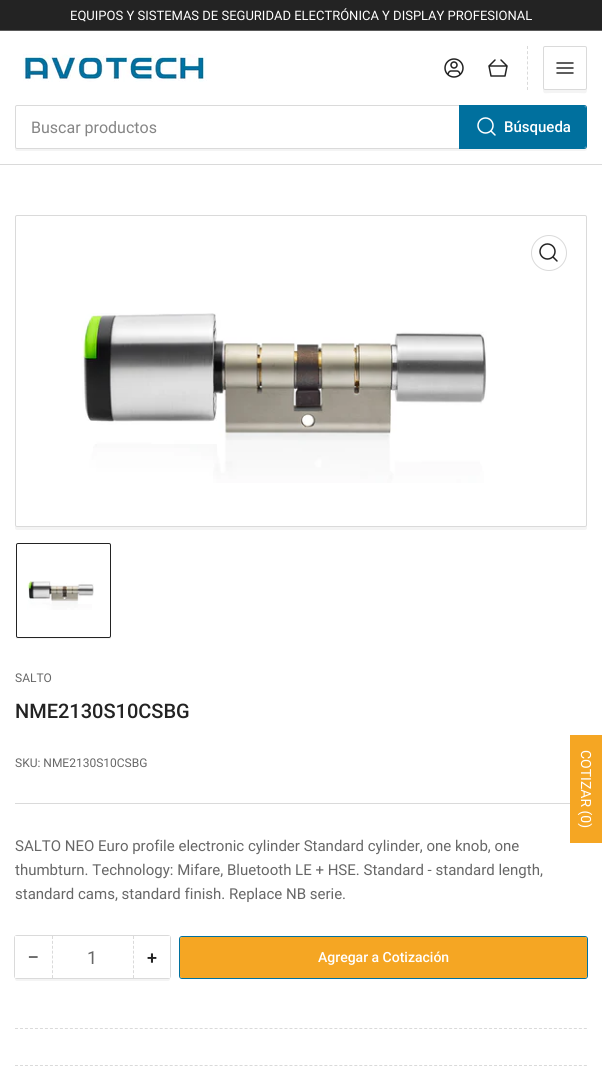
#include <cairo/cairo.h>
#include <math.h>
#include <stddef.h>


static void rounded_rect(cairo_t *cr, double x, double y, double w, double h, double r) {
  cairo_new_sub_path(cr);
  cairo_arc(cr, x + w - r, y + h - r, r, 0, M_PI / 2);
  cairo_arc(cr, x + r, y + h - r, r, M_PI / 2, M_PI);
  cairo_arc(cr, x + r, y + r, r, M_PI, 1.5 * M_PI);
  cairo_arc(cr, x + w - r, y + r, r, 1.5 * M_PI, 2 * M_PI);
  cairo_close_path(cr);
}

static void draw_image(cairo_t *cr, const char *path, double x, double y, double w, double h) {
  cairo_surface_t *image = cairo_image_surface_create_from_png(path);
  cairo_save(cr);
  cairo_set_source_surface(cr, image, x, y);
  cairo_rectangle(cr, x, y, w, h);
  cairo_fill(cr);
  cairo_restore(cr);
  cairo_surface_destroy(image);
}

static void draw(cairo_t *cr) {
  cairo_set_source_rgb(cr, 1, 1, 1);
  cairo_paint(cr);
  cairo_set_source_rgb(cr, 35 / 255.0, 35 / 255.0, 35 / 255.0);
  cairo_rectangle(cr, 0, 0, 602, 30);
  cairo_fill(cr);
  cairo_set_source_rgb(cr, 90 / 255.0, 90 / 255.0, 90 / 255.0);
  cairo_rectangle(cr, 0, 30, 602, 1);
  cairo_fill(cr);
  cairo_set_source_rgb(cr, 218 / 255.0, 218 / 255.0, 218 / 255.0);
  cairo_rectangle(cr, 0, 164, 602, 1);
  cairo_fill(cr);
  draw_image(cr, "images/1.png", 23, 54, 184, 28);
  draw_image(cr, "images/2.png", 444, 58, 20, 20);
  draw_image(cr, "images/3.png", 488, 59, 20, 18);
  cairo_new_path(cr);
  cairo_move_to(cr, 527.5, 46);
  cairo_line_to(cr, 527.5, 90);
  cairo_set_line_width(cr, 1);
  cairo_set_dash(cr, (double[]){3, 2.12}, 2, 0);
  cairo_stroke(cr);
  cairo_set_source_rgb(cr, 244 / 255.0, 244 / 255.0, 244 / 255.0);
  cairo_new_path(cr);
  cairo_move_to(cr, 543, 88);
  cairo_curve_to(cr, 543, 95, 544, 93, 552, 93);
  cairo_line_to(cr, 578, 93);
  cairo_curve_to(cr, 586, 93, 587, 95, 587, 88);
  cairo_curve_to(cr, 587, 89, 586, 90, 585, 90);
  cairo_line_to(cr, 545, 90);
  cairo_curve_to(cr, 544, 90, 543, 89, 543, 88);
  cairo_close_path(cr);
  cairo_fill(cr);
  rounded_rect(cr, 543.5, 46.5, 43, 43, 1.5);
  cairo_set_source_rgb(cr, 218 / 255.0, 218 / 255.0, 218 / 255.0);
  cairo_set_dash(cr, NULL, 0, 0);
  cairo_stroke(cr);
  draw_image(cr, "images/4.png", 556, 62, 18, 12);
  cairo_set_source_rgb(cr, 244 / 255.0, 244 / 255.0, 244 / 255.0);
  cairo_new_path(cr);
  cairo_move_to(cr, 15, 147);
  cairo_curve_to(cr, 15, 149, 15, 151, 17, 151);
  cairo_line_to(cr, 585, 151);
  cairo_line_to(cr, 587, 150);
  cairo_line_to(cr, 587, 147);
  cairo_curve_to(cr, 587, 148, 586, 149, 585, 149);
  cairo_line_to(cr, 17, 149);
  cairo_curve_to(cr, 16, 149, 15, 148, 15, 147);
  cairo_close_path(cr);
  cairo_fill(cr);
  rounded_rect(cr, 15.5, 105.5, 571, 43, 1.5);
  cairo_set_source_rgb(cr, 218 / 255.0, 218 / 255.0, 218 / 255.0);
  cairo_stroke(cr);
  cairo_new_path(cr);
  cairo_move_to(cr, 459.5, 105.5);
  cairo_line_to(cr, 584, 105.5);
  cairo_curve_to(cr, 585.5, 105.5, 586.5, 106.5, 586.5, 108);
  cairo_line_to(cr, 586.5, 146);
  cairo_curve_to(cr, 586.5, 147.5, 585.5, 148.5, 584, 148.5);
  cairo_line_to(cr, 459.5, 148.5);
  cairo_close_path(cr);
  cairo_set_source_rgb(cr, 0, 112 / 255.0, 158 / 255.0);
  cairo_stroke(cr);
  cairo_new_path(cr);
  cairo_move_to(cr, 460, 106);
  cairo_line_to(cr, 584, 106);
  cairo_curve_to(cr, 585, 106, 586, 107, 586, 108);
  cairo_line_to(cr, 586, 146);
  cairo_curve_to(cr, 586, 147, 585, 148, 584, 148);
  cairo_line_to(cr, 460, 148);
  cairo_close_path(cr);
  cairo_fill(cr);
  draw_image(cr, "images/5.png", 477, 117, 19, 19);
  cairo_set_source_rgb(cr, 244 / 255.0, 244 / 255.0, 244 / 255.0);
  cairo_new_path(cr);
  cairo_move_to(cr, 15, 525);
  cairo_line_to(cr, 15, 528);
  cairo_curve_to(cr, 15, 529, 16, 530, 17, 530);
  cairo_line_to(cr, 585, 530);
  cairo_curve_to(cr, 586, 530, 587, 529, 587, 528);
  cairo_line_to(cr, 587, 525);
  cairo_curve_to(cr, 587, 526, 586, 527, 585, 527);
  cairo_line_to(cr, 17, 527);
  cairo_curve_to(cr, 16, 527, 15, 526, 15, 525);
  cairo_close_path(cr);
  cairo_fill(cr);
  rounded_rect(cr, 15.5, 215.5, 571, 311, 1.5);
  cairo_set_source_rgb(cr, 218 / 255.0, 218 / 255.0, 218 / 255.0);
  cairo_stroke(cr);
  cairo_arc(cr, 549, 253, 17.5, 0, 2 * M_PI);
  cairo_stroke(cr);
  draw_image(cr, "images/6.png", 539, 243, 19, 19);
  draw_image(cr, "images/7.png", 81, 313, 406, 170);
  cairo_save(cr);
  cairo_rectangle(cr, 15, 542, 572, 97);
  cairo_clip(cr);
  cairo_set_source_rgb(cr, 244 / 255.0, 244 / 255.0, 244 / 255.0);
  cairo_new_path(cr);
  cairo_move_to(cr, 16, 636);
  cairo_line_to(cr, 16, 639);
  cairo_curve_to(cr, 16, 640, 17, 641, 18, 641);
  cairo_line_to(cr, 109, 641);
  cairo_curve_to(cr, 110, 641, 111, 640, 111, 639);
  cairo_line_to(cr, 111, 636);
  cairo_curve_to(cr, 111, 637, 110, 638, 109, 638);
  cairo_line_to(cr, 18, 638);
  cairo_curve_to(cr, 17, 638, 16, 637, 16, 636);
  cairo_close_path(cr);
  cairo_fill(cr);
  cairo_restore(cr);
  rounded_rect(cr, 16.5, 543.5, 94, 94, 1.5);
  cairo_set_source_rgb(cr, 35 / 255.0, 35 / 255.0, 35 / 255.0);
  cairo_stroke(cr);
  draw_image(cr, "images/8.png", 27, 581, 67, 29);
  cairo_set_source_rgb(cr, 218 / 255.0, 218 / 255.0, 218 / 255.0);
  cairo_rectangle(cr, 15, 803, 555, 1);
  cairo_fill(cr);
  cairo_set_source_rgb(cr, 244 / 255.0, 244 / 255.0, 244 / 255.0);
  cairo_new_path(cr);
  cairo_move_to(cr, 15, 976);
  cairo_line_to(cr, 15, 979);
  cairo_curve_to(cr, 15, 980, 16, 981, 17, 981);
  cairo_line_to(cr, 168, 981);
  cairo_curve_to(cr, 169, 981, 170, 980, 170, 979);
  cairo_line_to(cr, 170, 976);
  cairo_curve_to(cr, 170, 977, 169, 978, 168, 978);
  cairo_line_to(cr, 17, 978);
  cairo_curve_to(cr, 16, 978, 15, 977, 15, 976);
  cairo_close_path(cr);
  cairo_fill(cr);
  rounded_rect(cr, 14.5, 935.5, 156, 43, 2.5);
  cairo_set_source_rgb(cr, 218 / 255.0, 218 / 255.0, 218 / 255.0);
  cairo_stroke(cr);
  cairo_set_source_rgb(cr, 1, 1, 1);
  cairo_rectangle(cr, 15, 936, 2, 42);
  cairo_fill(cr);
  cairo_new_path(cr);
  cairo_move_to(cr, 133.5, 936);
  cairo_line_to(cr, 133.5, 978);
  cairo_set_source_rgb(cr, 218 / 255.0, 218 / 255.0, 218 / 255.0);
  cairo_set_dash(cr, (double[]){3, 1.88}, 2, 0);
  cairo_stroke(cr);
  cairo_new_path(cr);
  cairo_move_to(cr, 52.5, 936);
  cairo_line_to(cr, 52.5, 978);
  cairo_stroke(cr);
  cairo_set_source_rgb(cr, 1, 1, 1);
  cairo_rectangle(cr, 168, 936, 2, 42);
  cairo_fill(cr);
  rounded_rect(cr, 179.5, 936.5, 408, 42, 2.5);
  cairo_set_source_rgb(cr, 0, 112 / 255.0, 158 / 255.0);
  cairo_set_dash(cr, NULL, 0, 0);
  cairo_stroke(cr);
  cairo_set_source_rgb(cr, 245 / 255.0, 166 / 255.0, 35 / 255.0);
  rounded_rect(cr, 180, 937, 407, 41, 2);
  cairo_fill(cr);
  cairo_new_path(cr);
  cairo_move_to(cr, 15, 1028.5);
  cairo_line_to(cr, 587, 1028.5);
  cairo_set_source_rgb(cr, 218 / 255.0, 218 / 255.0, 218 / 255.0);
  cairo_set_dash(cr, (double[]){3, 1.99}, 2, 0);
  cairo_stroke(cr);
  cairo_new_path(cr);
  cairo_move_to(cr, 15, 1065.5);
  cairo_line_to(cr, 587, 1065.5);
  cairo_stroke(cr);
  cairo_set_source_rgb(cr, 245 / 255.0, 166 / 255.0, 35 / 255.0);
  cairo_rectangle(cr, 570, 735, 32, 108);
  cairo_fill(cr);
  cairo_select_font_face(cr, "Roboto", CAIRO_FONT_SLANT_NORMAL, CAIRO_FONT_WEIGHT_NORMAL);
  cairo_set_font_size(cr, 13);
  cairo_set_source_rgb(cr, 1, 1, 1);
  cairo_move_to(cr, 70, 20);
  cairo_show_text(cr, "EQUIPOS Y SISTEMAS DE SEGURIDAD ELECTRÓNICA Y DISPLAY PROFESIONAL");
  cairo_set_font_size(cr, 16);
  cairo_set_source_rgb(cr, 133 / 255.0, 133 / 255.0, 133 / 255.0);
  cairo_move_to(cr, 31, 133);
  cairo_show_text(cr, "Buscar productos");
  cairo_select_font_face(cr, "Roboto Medium", CAIRO_FONT_SLANT_NORMAL, CAIRO_FONT_WEIGHT_NORMAL);
  cairo_set_font_size(cr, 15);
  cairo_set_source_rgb(cr, 1, 1, 1);
  cairo_move_to(cr, 504, 132);
  cairo_show_text(cr, "Búsqueda");
  cairo_select_font_face(cr, "Roboto", CAIRO_FONT_SLANT_NORMAL, CAIRO_FONT_WEIGHT_NORMAL);
  cairo_set_font_size(cr, 12);
  cairo_set_source_rgb(cr, 103 / 255.0, 103 / 255.0, 103 / 255.0);
  cairo_move_to(cr, 15, 682);
  cairo_show_text(cr, "SALTO");
  cairo_select_font_face(cr, "Roboto Medium", CAIRO_FONT_SLANT_NORMAL, CAIRO_FONT_WEIGHT_NORMAL);
  cairo_set_font_size(cr, 20);
  cairo_set_source_rgb(cr, 35 / 255.0, 35 / 255.0, 35 / 255.0);
  cairo_move_to(cr, 15, 718);
  cairo_show_text(cr, "NME2130S10CSBG");
  cairo_select_font_face(cr, "Roboto", CAIRO_FONT_SLANT_NORMAL, CAIRO_FONT_WEIGHT_NORMAL);
  cairo_set_font_size(cr, 12);
  cairo_set_source_rgb(cr, 103 / 255.0, 103 / 255.0, 103 / 255.0);
  cairo_move_to(cr, 15, 767);
  cairo_show_text(cr, "SKU: NME2130S10CSBG");
  cairo_set_font_size(cr, 15);
  cairo_move_to(cr, 15, 851);
  cairo_show_text(cr, "SALTO NEO Euro profile electronic cylinder Standard cylinder, one knob, one");
  cairo_move_to(cr, 15, 875);
  cairo_show_text(cr, "thumbturn. Technology: Mifare, Bluetooth LE + HSE. Standard - standard length,");
  cairo_move_to(cr, 15, 899);
  cairo_show_text(cr, "standard cams, standard finish. Replace NB serie.");
  cairo_select_font_face(cr, "Liberation Sans", CAIRO_FONT_SLANT_NORMAL, CAIRO_FONT_WEIGHT_NORMAL);
  cairo_set_font_size(cr, 18);
  cairo_set_source_rgb(cr, 35 / 255.0, 35 / 255.0, 35 / 255.0);
  cairo_move_to(cr, 28, 963);
  cairo_show_text(cr, "−");
  cairo_select_font_face(cr, "Roboto", CAIRO_FONT_SLANT_NORMAL, CAIRO_FONT_WEIGHT_NORMAL);
  cairo_set_source_rgb(cr, 103 / 255.0, 103 / 255.0, 103 / 255.0);
  cairo_move_to(cr, 87, 964);
  cairo_show_text(cr, "1");
  cairo_select_font_face(cr, "Roboto Medium", CAIRO_FONT_SLANT_NORMAL, CAIRO_FONT_WEIGHT_NORMAL);
  cairo_set_source_rgb(cr, 35 / 255.0, 35 / 255.0, 35 / 255.0);
  cairo_move_to(cr, 147, 964);
  cairo_show_text(cr, "+");
  cairo_set_font_size(cr, 14);
  cairo_set_source_rgb(cr, 1, 1, 1);
  cairo_move_to(cr, 318, 962);
  cairo_show_text(cr, "Agregar a Cotización");
  cairo_select_font_face(cr, "Roboto", CAIRO_FONT_SLANT_NORMAL, CAIRO_FONT_WEIGHT_NORMAL);
  cairo_save(cr);
  cairo_translate(cr, 581, 750);
  cairo_rotate(cr, 90 * M_PI / 180);
  cairo_move_to(cr, 0, 0);
  cairo_show_text(cr, "COTIZAR (0)");
  cairo_restore(cr);
}

int main(void) {
  cairo_surface_t *surface = cairo_image_surface_create(CAIRO_FORMAT_RGB24, 602, 1074);
  cairo_t *cr = cairo_create(surface);
  cairo_font_options_t *options = cairo_font_options_create();
  cairo_font_options_set_hint_metrics(options, CAIRO_HINT_METRICS_OFF);
  cairo_font_options_set_hint_style(options, CAIRO_HINT_STYLE_NONE);
  cairo_set_font_options(cr, options);
  cairo_set_miter_limit(cr, 4);
  draw(cr);
  cairo_surface_write_to_png(surface, "out.png");
  cairo_font_options_destroy(options);
  cairo_destroy(cr);
  cairo_surface_destroy(surface);
  return 0;
}
